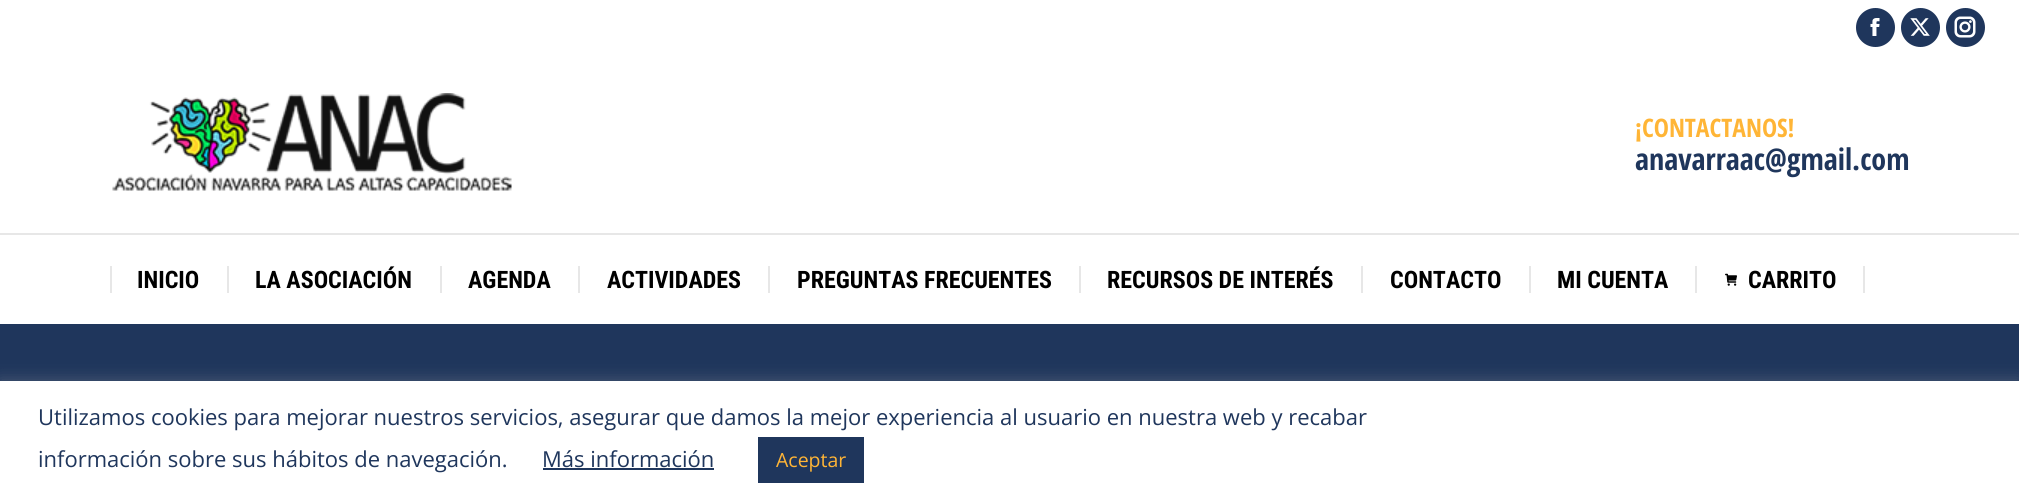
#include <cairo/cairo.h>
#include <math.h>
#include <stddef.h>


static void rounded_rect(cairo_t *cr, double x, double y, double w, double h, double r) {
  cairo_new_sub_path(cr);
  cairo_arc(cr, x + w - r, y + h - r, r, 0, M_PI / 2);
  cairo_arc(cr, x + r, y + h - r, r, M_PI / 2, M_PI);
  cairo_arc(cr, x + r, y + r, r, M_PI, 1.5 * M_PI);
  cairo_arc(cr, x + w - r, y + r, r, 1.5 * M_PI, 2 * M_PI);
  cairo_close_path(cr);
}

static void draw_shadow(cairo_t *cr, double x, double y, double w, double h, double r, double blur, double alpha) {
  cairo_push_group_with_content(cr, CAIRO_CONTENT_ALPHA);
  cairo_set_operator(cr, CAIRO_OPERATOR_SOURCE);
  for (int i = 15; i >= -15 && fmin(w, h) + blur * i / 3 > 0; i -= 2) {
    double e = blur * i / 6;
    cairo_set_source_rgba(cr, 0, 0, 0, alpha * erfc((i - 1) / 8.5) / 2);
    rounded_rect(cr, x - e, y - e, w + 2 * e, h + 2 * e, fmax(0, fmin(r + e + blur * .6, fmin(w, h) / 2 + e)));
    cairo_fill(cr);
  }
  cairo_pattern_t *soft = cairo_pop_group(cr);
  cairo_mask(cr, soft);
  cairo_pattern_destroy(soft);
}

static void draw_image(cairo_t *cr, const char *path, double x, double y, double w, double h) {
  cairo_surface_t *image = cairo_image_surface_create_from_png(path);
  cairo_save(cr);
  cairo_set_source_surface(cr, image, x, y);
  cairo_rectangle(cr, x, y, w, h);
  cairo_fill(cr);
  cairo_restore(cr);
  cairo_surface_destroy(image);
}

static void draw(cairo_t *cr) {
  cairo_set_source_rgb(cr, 1, 1, 1);
  cairo_paint(cr);
  cairo_set_source_rgb(cr, 31 / 255.0, 54 / 255.0, 92 / 255.0);
  cairo_arc(cr, 1875.5, 27.5, 19.5, 0, 2 * M_PI);
  cairo_fill(cr);
  draw_image(cr, "images/1.png", 1870, 18, 10, 18);
  cairo_arc(cr, 1920.5, 27.5, 19.5, 0, 2 * M_PI);
  cairo_fill(cr);
  draw_image(cr, "images/2.png", 1910, 18, 20, 18);
  cairo_arc(cr, 1965.5, 27.5, 19.5, 0, 2 * M_PI);
  cairo_fill(cr);
  draw_image(cr, "images/3.png", 1954, 16, 22, 22);
  draw_image(cr, "images/4.png", 112, 93, 400, 98);
  cairo_set_source_rgb(cr, 231 / 255.0, 231 / 255.0, 231 / 255.0);
  cairo_rectangle(cr, 0, 233, 2019, 2);
  cairo_fill(cr);
  cairo_rectangle(cr, 110, 266, 2, 27);
  cairo_fill(cr);
  cairo_rectangle(cr, 227, 266, 2, 27);
  cairo_fill(cr);
  cairo_rectangle(cr, 440, 266, 2, 27);
  cairo_fill(cr);
  cairo_rectangle(cr, 578, 266, 2, 27);
  cairo_fill(cr);
  cairo_rectangle(cr, 768, 266, 2, 27);
  cairo_fill(cr);
  cairo_rectangle(cr, 1079, 266, 2, 27);
  cairo_fill(cr);
  cairo_rectangle(cr, 1361, 266, 2, 27);
  cairo_fill(cr);
  cairo_rectangle(cr, 1529, 266, 2, 27);
  cairo_fill(cr);
  cairo_rectangle(cr, 1695, 266, 2, 27);
  cairo_fill(cr);
  draw_image(cr, "images/5.png", 1725, 273, 12, 13);
  cairo_rectangle(cr, 1863, 266, 2, 27);
  cairo_fill(cr);
  cairo_set_source_rgb(cr, 31 / 255.0, 54 / 255.0, 92 / 255.0);
  cairo_rectangle(cr, 0, 324, 2019, 57);
  cairo_fill(cr);
  cairo_set_source_rgb(cr, 172 / 255.0, 171 / 255.0, 171 / 255.0);
  draw_shadow(cr, 0, 380, 2019, 123, 0, 7.5, 0.3);
  cairo_set_source_rgb(cr, 1, 1, 1);
  cairo_rectangle(cr, 0, 381, 2019, 123);
  cairo_fill(cr);
  cairo_set_source_rgb(cr, 31 / 255.0, 54 / 255.0, 92 / 255.0);
  cairo_rectangle(cr, 543, 468, 171, 2);
  cairo_fill(cr);
  cairo_rectangle(cr, 758, 437, 106, 46);
  cairo_fill(cr);
  cairo_select_font_face(cr, "Open Sans Condensed", CAIRO_FONT_SLANT_NORMAL, CAIRO_FONT_WEIGHT_BOLD);
  cairo_set_font_size(cr, 25.5);
  cairo_set_source_rgb(cr, 1, 181 / 255.0, 54 / 255.0);
  cairo_move_to(cr, 1635, 137);
  cairo_show_text(cr, "¡CONTACTANOS!");
  cairo_set_font_size(cr, 30);
  cairo_set_source_rgb(cr, 31 / 255.0, 54 / 255.0, 92 / 255.0);
  cairo_move_to(cr, 1635, 170);
  cairo_show_text(cr, "anavarraac@gmail.com");
  cairo_select_font_face(cr, "Roboto Condensed", CAIRO_FONT_SLANT_NORMAL, CAIRO_FONT_WEIGHT_BOLD);
  cairo_set_font_size(cr, 24);
  cairo_set_source_rgb(cr, 0, 0, 0);
  cairo_move_to(cr, 137, 288);
  cairo_show_text(cr, "INICIO");
  cairo_move_to(cr, 255, 288);
  cairo_show_text(cr, "LA ASOCIACIÓN");
  cairo_move_to(cr, 468, 288);
  cairo_show_text(cr, "AGENDA");
  cairo_move_to(cr, 607, 288);
  cairo_show_text(cr, "ACTIVIDADES");
  cairo_move_to(cr, 797, 288);
  cairo_show_text(cr, "PREGUNTAS FRECUENTES");
  cairo_move_to(cr, 1107, 288);
  cairo_show_text(cr, "RECURSOS DE INTERÉS");
  cairo_move_to(cr, 1390, 288);
  cairo_show_text(cr, "CONTACTO");
  cairo_move_to(cr, 1557, 288);
  cairo_show_text(cr, "MI CUENTA");
  cairo_move_to(cr, 1748, 288);
  cairo_show_text(cr, "CARRITO");
  cairo_select_font_face(cr, "Open Sans", CAIRO_FONT_SLANT_NORMAL, CAIRO_FONT_WEIGHT_NORMAL);
  cairo_set_font_size(cr, 22);
  cairo_set_source_rgb(cr, 31 / 255.0, 54 / 255.0, 92 / 255.0);
  cairo_move_to(cr, 38, 425);
  cairo_show_text(cr, "Utilizamos cookies para mejorar nuestros servicios, asegurar que damos la mejor experiencia al usuario en nuestra web y recabar");
  cairo_move_to(cr, 38, 467);
  cairo_show_text(cr, "información sobre sus hábitos de navegación.");
  cairo_move_to(cr, 542, 467);
  cairo_show_text(cr, "Más información");
  cairo_set_font_size(cr, 19.5);
  cairo_set_source_rgb(cr, 1, 181 / 255.0, 54 / 255.0);
  cairo_move_to(cr, 776, 467);
  cairo_show_text(cr, "Aceptar");
}

int main(void) {
  cairo_surface_t *surface = cairo_image_surface_create(CAIRO_FORMAT_RGB24, 2019, 504);
  cairo_t *cr = cairo_create(surface);
  cairo_font_options_t *options = cairo_font_options_create();
  cairo_font_options_set_hint_metrics(options, CAIRO_HINT_METRICS_OFF);
  cairo_font_options_set_hint_style(options, CAIRO_HINT_STYLE_NONE);
  cairo_set_font_options(cr, options);
  cairo_set_miter_limit(cr, 4);
  draw(cr);
  cairo_surface_write_to_png(surface, "out.png");
  cairo_font_options_destroy(options);
  cairo_destroy(cr);
  cairo_surface_destroy(surface);
  return 0;
}
